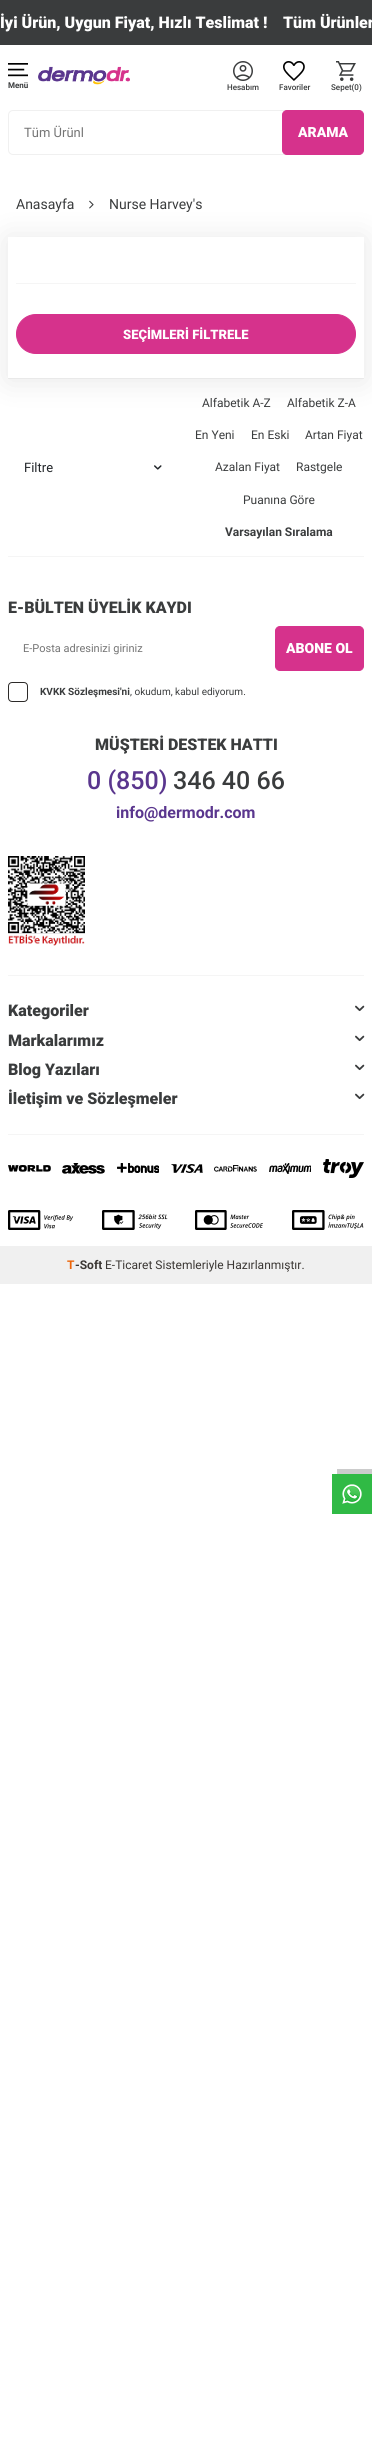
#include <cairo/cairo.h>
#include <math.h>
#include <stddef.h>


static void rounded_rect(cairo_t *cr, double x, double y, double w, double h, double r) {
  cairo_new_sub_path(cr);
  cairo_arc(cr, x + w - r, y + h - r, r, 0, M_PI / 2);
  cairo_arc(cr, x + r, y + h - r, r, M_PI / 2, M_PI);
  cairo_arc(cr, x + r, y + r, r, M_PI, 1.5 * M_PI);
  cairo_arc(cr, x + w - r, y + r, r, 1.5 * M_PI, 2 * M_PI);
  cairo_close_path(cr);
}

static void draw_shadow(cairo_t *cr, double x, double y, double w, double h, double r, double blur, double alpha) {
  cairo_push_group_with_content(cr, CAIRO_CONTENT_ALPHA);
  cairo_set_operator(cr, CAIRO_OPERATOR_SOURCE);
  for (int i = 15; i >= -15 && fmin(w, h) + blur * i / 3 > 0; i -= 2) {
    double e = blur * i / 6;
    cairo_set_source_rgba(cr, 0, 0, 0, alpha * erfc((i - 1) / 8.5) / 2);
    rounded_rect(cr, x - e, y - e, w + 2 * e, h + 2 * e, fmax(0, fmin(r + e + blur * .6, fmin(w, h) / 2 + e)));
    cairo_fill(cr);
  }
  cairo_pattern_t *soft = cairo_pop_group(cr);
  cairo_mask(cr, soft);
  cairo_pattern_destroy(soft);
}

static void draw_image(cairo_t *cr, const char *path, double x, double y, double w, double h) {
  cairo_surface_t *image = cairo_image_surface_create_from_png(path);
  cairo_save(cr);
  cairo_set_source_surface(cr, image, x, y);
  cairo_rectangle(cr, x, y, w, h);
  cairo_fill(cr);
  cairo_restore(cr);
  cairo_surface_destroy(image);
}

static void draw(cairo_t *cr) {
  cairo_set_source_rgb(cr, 1, 1, 1);
  cairo_paint(cr);
  cairo_set_source_rgb(cr, 58 / 255.0, 60 / 255.0, 61 / 255.0);
  cairo_rectangle(cr, 0, 0, 372, 45);
  cairo_fill(cr);
  draw_image(cr, "images/1.png", 8, 63, 20, 14);
  draw_image(cr, "images/2.png", 38, 66, 92, 19);
  draw_image(cr, "images/3.png", 233, 61, 20, 20);
  draw_image(cr, "images/4.png", 283, 61, 22, 20);
  draw_image(cr, "images/5.png", 336, 61, 20, 20);
  rounded_rect(cr, 8.5, 110.5, 355, 44, 4.5);
  cairo_set_source_rgb(cr, 240 / 255.0, 240 / 255.0, 240 / 255.0);
  cairo_set_line_width(cr, 1);
  cairo_stroke(cr);
  cairo_set_source_rgb(cr, 214 / 255.0, 50 / 255.0, 140 / 255.0);
  rounded_rect(cr, 282.5, 110.5, 81, 44, 4.5);
  cairo_fill_preserve(cr);
  cairo_stroke(cr);
  draw_image(cr, "images/6.png", 89, 200, 5, 9);
  cairo_set_source_rgb(cr, 245 / 255.0, 245 / 255.0, 245 / 255.0);
  cairo_rectangle(cr, 8, 378, 356, 1);
  cairo_fill(cr);
  cairo_save(cr);
  cairo_set_fill_rule(cr, CAIRO_FILL_RULE_EVEN_ODD);
  cairo_new_path(cr);
  cairo_move_to(cr, 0, 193);
  cairo_line_to(cr, 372, 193);
  cairo_line_to(cr, 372, 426);
  cairo_line_to(cr, 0, 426);
  cairo_close_path(cr);
  cairo_move_to(cr, 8, 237);
  cairo_line_to(cr, 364, 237);
  cairo_line_to(cr, 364, 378);
  cairo_line_to(cr, 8, 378);
  cairo_close_path(cr);
  cairo_clip(cr);
  cairo_set_source_rgb(cr, 0, 0, 0);
  draw_shadow(cr, 8, 239, 356, 141, 0, 15, 0.1);
  cairo_restore(cr);
  cairo_rectangle(cr, 16, 283, 340, 1);
  cairo_fill(cr);
  cairo_set_source_rgb(cr, 214 / 255.0, 50 / 255.0, 140 / 255.0);
  rounded_rect(cr, 16.5, 314.5, 339, 39, 19.5);
  cairo_fill_preserve(cr);
  cairo_stroke(cr);
  cairo_set_source_rgb(cr, 245 / 255.0, 245 / 255.0, 245 / 255.0);
  cairo_rectangle(cr, 8, 556, 356, 1);
  cairo_fill(cr);
  draw_image(cr, "images/7.png", 154, 465, 8, 5);
  cairo_set_source_rgb(cr, 214 / 255.0, 50 / 255.0, 140 / 255.0);
  rounded_rect(cr, 275.5, 626.5, 88, 44, 4.5);
  cairo_fill_preserve(cr);
  cairo_stroke(cr);
  rounded_rect(cr, 8.5, 682.5, 19, 19, 3.5);
  cairo_set_source_rgb(cr, 44 / 255.0, 42 / 255.0, 40 / 255.0);
  cairo_stroke(cr);
  draw_image(cr, "images/8.png", 8, 856, 77, 90);
  cairo_set_source_rgb(cr, 245 / 255.0, 245 / 255.0, 245 / 255.0);
  cairo_rectangle(cr, 8, 975, 356, 1);
  cairo_fill(cr);
  draw_image(cr, "images/9.png", 355, 1005, 10, 7);
  draw_image(cr, "images/9.png", 355, 1035, 10, 7);
  draw_image(cr, "images/9.png", 355, 1064, 10, 7);
  draw_image(cr, "images/9.png", 355, 1093, 10, 7);
  cairo_rectangle(cr, 8, 1134, 356, 1);
  cairo_fill(cr);
  draw_image(cr, "images/10.png", 8, 1165, 43, 7);
  draw_image(cr, "images/11.png", 62, 1163, 43, 11);
  draw_image(cr, "images/12.png", 117, 1163, 42, 10);
  draw_image(cr, "images/13.png", 171, 1164, 32, 9);
  draw_image(cr, "images/14.png", 214, 1165, 43, 7);
  draw_image(cr, "images/15.png", 269, 1163, 42, 11);
  draw_image(cr, "images/16.png", 323, 1159, 41, 19);
  draw_image(cr, "images/17.png", 8, 1210, 66, 20);
  draw_image(cr, "images/18.png", 102, 1210, 66, 20);
  draw_image(cr, "images/19.png", 195, 1210, 68, 20);
  draw_image(cr, "images/20.png", 292, 1210, 72, 20);
  cairo_set_source_rgb(cr, 240 / 255.0, 240 / 255.0, 240 / 255.0);
  cairo_rectangle(cr, 0, 1246, 372, 38);
  cairo_fill(cr);
  cairo_set_source_rgb(cr, 204 / 255.0, 204 / 255.0, 204 / 255.0);
  cairo_new_path(cr);
  cairo_move_to(cr, 337, 1469);
  cairo_line_to(cr, 337, 1474);
  cairo_line_to(cr, 372, 1474);
  cairo_line_to(cr, 372, 1509);
  cairo_line_to(cr, 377, 1509);
  cairo_line_to(cr, 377, 1469);
  cairo_close_path(cr);
  cairo_fill(cr);
  cairo_set_source_rgb(cr, 48 / 255.0, 186 / 255.0, 69 / 255.0);
  cairo_rectangle(cr, 332, 1474, 40, 40);
  cairo_fill(cr);
  draw_image(cr, "images/21.png", 342, 1484, 20, 20);
  cairo_select_font_face(cr, "Roboto Black", CAIRO_FONT_SLANT_NORMAL, CAIRO_FONT_WEIGHT_NORMAL);
  cairo_set_font_size(cr, 16);
  cairo_set_source_rgb(cr, 1, 1, 1);
  cairo_move_to(cr, 0, 28);
  cairo_show_text(cr, "İyi Ürün, Uygun Fiyat, Hızlı Teslimat !");
  cairo_move_to(cr, 283, 28);
  cairo_show_text(cr, "Tüm Ürünler");
  cairo_select_font_face(cr, "Roboto", CAIRO_FONT_SLANT_NORMAL, CAIRO_FONT_WEIGHT_BOLD);
  cairo_set_font_size(cr, 8);
  cairo_set_source_rgb(cr, 58 / 255.0, 60 / 255.0, 61 / 255.0);
  cairo_move_to(cr, 8, 88);
  cairo_show_text(cr, "Menü");
  cairo_select_font_face(cr, "Roboto Medium", CAIRO_FONT_SLANT_NORMAL, CAIRO_FONT_WEIGHT_NORMAL);
  cairo_move_to(cr, 227, 90);
  cairo_show_text(cr, "Hesabım");
  cairo_move_to(cr, 279, 90);
  cairo_show_text(cr, "Favoriler");
  cairo_move_to(cr, 331, 90);
  cairo_show_text(cr, "Sepet(0)");
  cairo_select_font_face(cr, "Roboto", CAIRO_FONT_SLANT_NORMAL, CAIRO_FONT_WEIGHT_NORMAL);
  cairo_set_font_size(cr, 13);
  cairo_set_source_rgb(cr, 117 / 255.0, 117 / 255.0, 117 / 255.0);
  cairo_move_to(cr, 24, 137);
  cairo_show_text(cr, "Tüm Ürünl");
  cairo_select_font_face(cr, "Roboto Black", CAIRO_FONT_SLANT_NORMAL, CAIRO_FONT_WEIGHT_NORMAL);
  cairo_set_font_size(cr, 14);
  cairo_set_source_rgb(cr, 1, 1, 1);
  cairo_move_to(cr, 298, 137);
  cairo_show_text(cr, "ARAMA");
  cairo_select_font_face(cr, "Roboto", CAIRO_FONT_SLANT_NORMAL, CAIRO_FONT_WEIGHT_NORMAL);
  cairo_set_source_rgb(cr, 58 / 255.0, 60 / 255.0, 61 / 255.0);
  cairo_move_to(cr, 16, 209);
  cairo_show_text(cr, "Anasayfa");
  cairo_move_to(cr, 109, 209);
  cairo_show_text(cr, "Nurse Harvey's");
  cairo_select_font_face(cr, "Roboto Black", CAIRO_FONT_SLANT_NORMAL, CAIRO_FONT_WEIGHT_NORMAL);
  cairo_set_font_size(cr, 13);
  cairo_set_source_rgb(cr, 1, 1, 1);
  cairo_move_to(cr, 123, 339);
  cairo_show_text(cr, "SEÇİMLERİ FİLTRELE");
  cairo_select_font_face(cr, "Roboto", CAIRO_FONT_SLANT_NORMAL, CAIRO_FONT_WEIGHT_NORMAL);
  cairo_set_source_rgb(cr, 33 / 255.0, 37 / 255.0, 41 / 255.0);
  cairo_move_to(cr, 24, 472);
  cairo_show_text(cr, "Filtre");
  cairo_set_font_size(cr, 12);
  cairo_set_source_rgb(cr, 58 / 255.0, 60 / 255.0, 61 / 255.0);
  cairo_move_to(cr, 202, 407);
  cairo_show_text(cr, "Alfabetik A-Z");
  cairo_move_to(cr, 287, 407);
  cairo_show_text(cr, "Alfabetik Z-A");
  cairo_move_to(cr, 195, 439);
  cairo_show_text(cr, "En Yeni");
  cairo_move_to(cr, 251, 439);
  cairo_show_text(cr, "En Eski");
  cairo_move_to(cr, 305, 439);
  cairo_show_text(cr, "Artan Fiyat");
  cairo_move_to(cr, 215, 471);
  cairo_show_text(cr, "Azalan Fiyat");
  cairo_move_to(cr, 296, 471);
  cairo_show_text(cr, "Rastgele");
  cairo_move_to(cr, 243, 504);
  cairo_show_text(cr, "Puanına Göre");
  cairo_select_font_face(cr, "Roboto", CAIRO_FONT_SLANT_NORMAL, CAIRO_FONT_WEIGHT_BOLD);
  cairo_move_to(cr, 225, 536);
  cairo_show_text(cr, "Varsayılan Sıralama");
  cairo_select_font_face(cr, "Roboto Black", CAIRO_FONT_SLANT_NORMAL, CAIRO_FONT_WEIGHT_NORMAL);
  cairo_set_font_size(cr, 16);
  cairo_move_to(cr, 8, 613);
  cairo_show_text(cr, "E-BÜLTEN ÜYELİK KAYDI");
  cairo_select_font_face(cr, "Roboto", CAIRO_FONT_SLANT_NORMAL, CAIRO_FONT_WEIGHT_NORMAL);
  cairo_set_font_size(cr, 11);
  cairo_set_source_rgb(cr, 117 / 255.0, 117 / 255.0, 117 / 255.0);
  cairo_move_to(cr, 23, 652);
  cairo_show_text(cr, "E-Posta adresinizi giriniz");
  cairo_select_font_face(cr, "Roboto Black", CAIRO_FONT_SLANT_NORMAL, CAIRO_FONT_WEIGHT_NORMAL);
  cairo_set_font_size(cr, 14);
  cairo_set_source_rgb(cr, 1, 1, 1);
  cairo_move_to(cr, 286, 653);
  cairo_show_text(cr, "ABONE OL");
  cairo_select_font_face(cr, "Roboto", CAIRO_FONT_SLANT_NORMAL, CAIRO_FONT_WEIGHT_BOLD);
  cairo_set_font_size(cr, 10);
  cairo_set_source_rgb(cr, 58 / 255.0, 60 / 255.0, 61 / 255.0);
  cairo_move_to(cr, 40, 695);
  cairo_show_text(cr, "KVKK Sözleşmesi'ni");
  cairo_select_font_face(cr, "Roboto", CAIRO_FONT_SLANT_NORMAL, CAIRO_FONT_WEIGHT_NORMAL);
  cairo_move_to(cr, 130, 695);
  cairo_show_text(cr, ", okudum, kabul ediyorum.");
  cairo_select_font_face(cr, "Roboto Black", CAIRO_FONT_SLANT_NORMAL, CAIRO_FONT_WEIGHT_NORMAL);
  cairo_set_font_size(cr, 16);
  cairo_move_to(cr, 95, 750);
  cairo_show_text(cr, "MÜŞTERİ DESTEK HATTI");
  cairo_select_font_face(cr, "Roboto Medium", CAIRO_FONT_SLANT_NORMAL, CAIRO_FONT_WEIGHT_NORMAL);
  cairo_set_font_size(cr, 25);
  cairo_set_source_rgb(cr, 90 / 255.0, 54 / 255.0, 142 / 255.0);
  cairo_move_to(cr, 87, 789);
  cairo_show_text(cr, "0 (850)");
  cairo_set_source_rgb(cr, 58 / 255.0, 60 / 255.0, 61 / 255.0);
  cairo_move_to(cr, 173, 789);
  cairo_show_text(cr, "346 40 66");
  cairo_select_font_face(cr, "Roboto", CAIRO_FONT_SLANT_NORMAL, CAIRO_FONT_WEIGHT_BOLD);
  cairo_set_font_size(cr, 16);
  cairo_set_source_rgb(cr, 90 / 255.0, 54 / 255.0, 142 / 255.0);
  cairo_move_to(cr, 116, 818);
  cairo_show_text(cr, "info@dermodr.com");
  cairo_select_font_face(cr, "Roboto Black", CAIRO_FONT_SLANT_NORMAL, CAIRO_FONT_WEIGHT_NORMAL);
  cairo_set_source_rgb(cr, 58 / 255.0, 60 / 255.0, 61 / 255.0);
  cairo_move_to(cr, 8, 1016);
  cairo_show_text(cr, "Kategoriler");
  cairo_move_to(cr, 8, 1046);
  cairo_show_text(cr, "Markalarımız");
  cairo_move_to(cr, 8, 1075);
  cairo_show_text(cr, "Blog Yazıları");
  cairo_move_to(cr, 8, 1104);
  cairo_show_text(cr, "İletişim ve Sözleşmeler");
  cairo_select_font_face(cr, "Roboto", CAIRO_FONT_SLANT_NORMAL, CAIRO_FONT_WEIGHT_BOLD);
  cairo_set_font_size(cr, 12);
  cairo_set_source_rgb(cr, 236 / 255.0, 100 / 255.0, 8 / 255.0);
  cairo_move_to(cr, 67, 1269);
  cairo_show_text(cr, "T");
  cairo_set_source_rgb(cr, 59 / 255.0, 55 / 255.0, 52 / 255.0);
  cairo_move_to(cr, 75, 1269);
  cairo_show_text(cr, "-Soft");
  cairo_select_font_face(cr, "Roboto", CAIRO_FONT_SLANT_NORMAL, CAIRO_FONT_WEIGHT_NORMAL);
  cairo_move_to(cr, 105, 1269);
  cairo_show_text(cr, "E-Ticaret Sistemleriyle Hazırlanmıştır.");
}

int main(void) {
  cairo_surface_t *surface = cairo_image_surface_create(CAIRO_FORMAT_RGB24, 372, 2450);
  cairo_t *cr = cairo_create(surface);
  cairo_font_options_t *options = cairo_font_options_create();
  cairo_font_options_set_hint_metrics(options, CAIRO_HINT_METRICS_OFF);
  cairo_font_options_set_hint_style(options, CAIRO_HINT_STYLE_NONE);
  cairo_set_font_options(cr, options);
  cairo_set_miter_limit(cr, 4);
  draw(cr);
  cairo_surface_write_to_png(surface, "out.png");
  cairo_font_options_destroy(options);
  cairo_destroy(cr);
  cairo_surface_destroy(surface);
  return 0;
}
